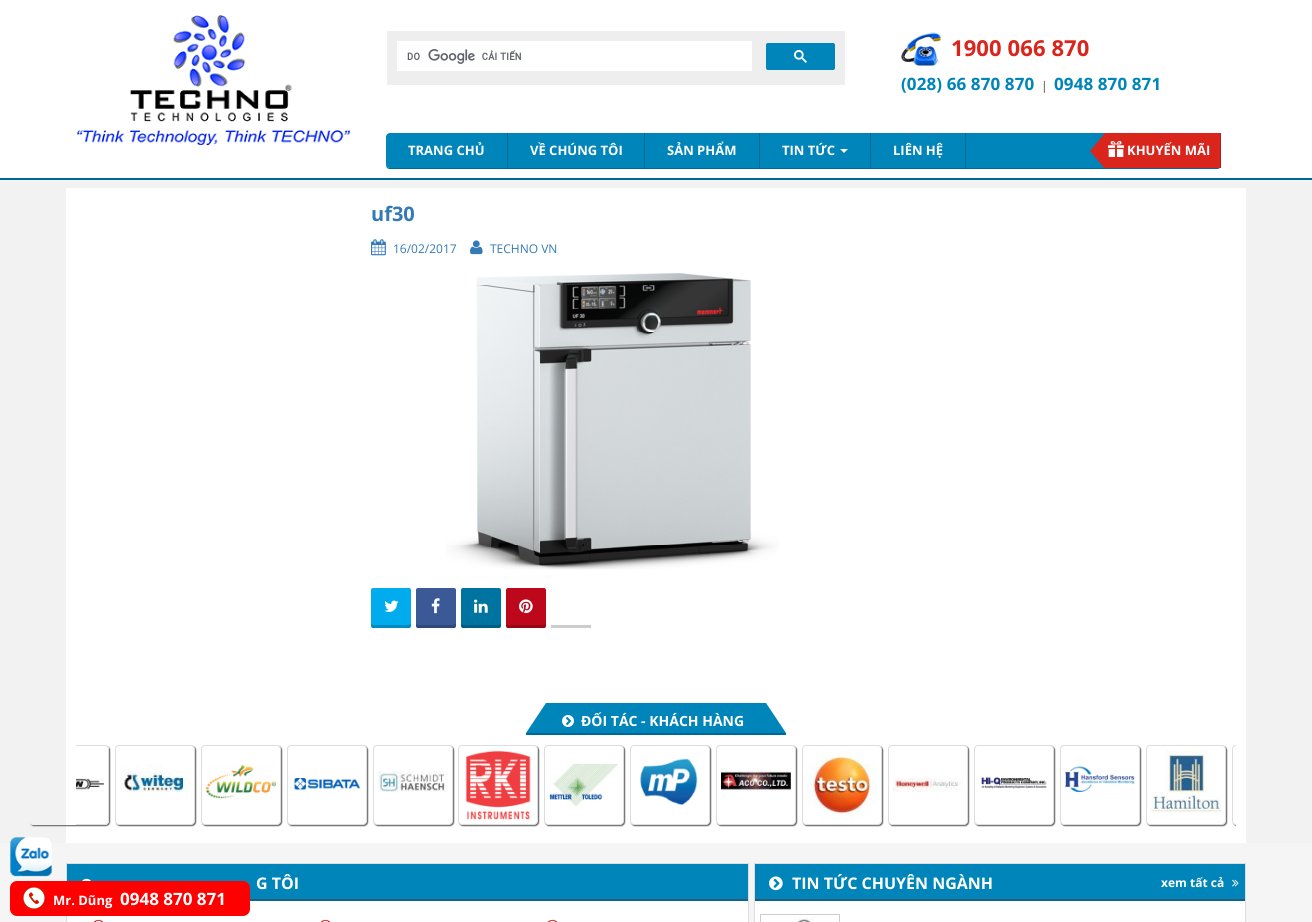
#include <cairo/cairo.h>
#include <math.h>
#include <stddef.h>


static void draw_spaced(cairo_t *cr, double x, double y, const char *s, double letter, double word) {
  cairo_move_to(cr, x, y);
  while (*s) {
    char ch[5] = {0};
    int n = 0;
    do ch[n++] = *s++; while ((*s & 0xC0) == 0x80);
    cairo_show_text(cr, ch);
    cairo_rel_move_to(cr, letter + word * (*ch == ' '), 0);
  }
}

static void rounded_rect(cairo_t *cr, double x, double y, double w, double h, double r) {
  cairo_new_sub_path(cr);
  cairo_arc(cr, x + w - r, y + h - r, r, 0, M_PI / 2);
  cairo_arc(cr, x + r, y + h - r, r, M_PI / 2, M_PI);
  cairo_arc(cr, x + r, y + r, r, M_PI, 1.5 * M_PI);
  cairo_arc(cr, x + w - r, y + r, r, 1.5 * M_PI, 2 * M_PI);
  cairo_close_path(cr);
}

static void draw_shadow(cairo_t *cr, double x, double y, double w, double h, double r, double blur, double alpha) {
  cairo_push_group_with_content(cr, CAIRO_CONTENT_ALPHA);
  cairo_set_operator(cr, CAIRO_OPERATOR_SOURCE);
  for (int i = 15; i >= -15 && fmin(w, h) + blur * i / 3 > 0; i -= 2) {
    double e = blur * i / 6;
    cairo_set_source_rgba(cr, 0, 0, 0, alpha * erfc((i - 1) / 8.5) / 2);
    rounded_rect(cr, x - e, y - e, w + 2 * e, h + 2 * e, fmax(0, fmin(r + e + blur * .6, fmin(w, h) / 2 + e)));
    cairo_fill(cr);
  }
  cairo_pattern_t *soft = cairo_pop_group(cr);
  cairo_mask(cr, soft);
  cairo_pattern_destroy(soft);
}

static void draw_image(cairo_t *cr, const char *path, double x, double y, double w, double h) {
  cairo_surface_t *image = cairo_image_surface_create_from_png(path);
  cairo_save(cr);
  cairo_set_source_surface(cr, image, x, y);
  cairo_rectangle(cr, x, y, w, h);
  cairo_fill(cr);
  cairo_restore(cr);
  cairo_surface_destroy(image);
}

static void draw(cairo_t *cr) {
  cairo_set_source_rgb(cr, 242 / 255.0, 242 / 255.0, 242 / 255.0);
  cairo_paint(cr);
  cairo_set_source_rgb(cr, 245 / 255.0, 245 / 255.0, 245 / 255.0);
  cairo_rectangle(cr, 0, 843, 1312, 79);
  cairo_fill(cr);
  draw_image(cr, "images/1.png", 10, 837, 42, 40);
  cairo_set_source_rgb(cr, 0, 103 / 255.0, 153 / 255.0);
  cairo_rectangle(cr, 0, 178, 1312, 2);
  cairo_fill(cr);
  cairo_set_source_rgb(cr, 1, 1, 1);
  cairo_rectangle(cr, 0, 0, 1312, 178);
  cairo_fill(cr);
  draw_image(cr, "images/2.png", 77, 15, 273, 130);
  cairo_set_source_rgb(cr, 238 / 255.0, 238 / 255.0, 238 / 255.0);
  cairo_rectangle(cr, 387, 31, 458, 54);
  cairo_fill(cr);
  cairo_set_source_rgb(cr, 1, 1, 1);
  cairo_rectangle(cr, 397, 41, 355, 30);
  cairo_fill(cr);
  draw_image(cr, "images/3.png", 407, 49, 114, 15);
  cairo_set_source_rgb(cr, 0, 133 / 255.0, 186 / 255.0);
  rounded_rect(cr, 766.5, 43.5, 68, 26, 1.5);
  cairo_fill_preserve(cr);
  cairo_set_line_width(cr, 1);
  cairo_stroke(cr);
  draw_image(cr, "images/4.png", 794, 50, 13, 13);
  draw_image(cr, "images/5.png", 901, 32, 40, 34);
  cairo_set_source_rgb(cr, 0, 103 / 255.0, 153 / 255.0);
  cairo_new_path(cr);
  cairo_move_to(cr, 386, 164);
  cairo_curve_to(cr, 386, 167, 387, 169, 390, 169);
  cairo_line_to(cr, 1217, 169);
  cairo_curve_to(cr, 1220, 169, 1221, 167, 1221, 164);
  cairo_curve_to(cr, 1221, 166, 1219, 168, 1217, 168);
  cairo_line_to(cr, 390, 168);
  cairo_curve_to(cr, 388, 168, 386, 166, 386, 164);
  cairo_close_path(cr);
  cairo_fill(cr);
  cairo_set_source_rgb(cr, 0, 133 / 255.0, 186 / 255.0);
  rounded_rect(cr, 386, 133, 835, 35, 4);
  cairo_fill(cr);
  cairo_set_source_rgb(cr, 0, 106 / 255.0, 149 / 255.0);
  cairo_rectangle(cr, 507, 133, 1, 35);
  cairo_fill(cr);
  cairo_rectangle(cr, 644, 133, 1, 35);
  cairo_fill(cr);
  cairo_rectangle(cr, 759, 133, 1, 35);
  cairo_fill(cr);
  cairo_rectangle(cr, 870, 133, 1, 35);
  cairo_fill(cr);
  cairo_set_source_rgb(cr, 1, 1, 1);
  cairo_new_path(cr);
  cairo_move_to(cr, 840, 149);
  cairo_line_to(cr, 848, 149);
  cairo_line_to(cr, 844, 153);
  cairo_close_path(cr);
  cairo_fill(cr);
  cairo_set_source_rgb(cr, 0, 106 / 255.0, 149 / 255.0);
  cairo_rectangle(cr, 965, 133, 1, 35);
  cairo_fill(cr);
  cairo_set_source_rgb(cr, 218 / 255.0, 37 / 255.0, 28 / 255.0);
  cairo_rectangle(cr, 1105, 133, 115, 35);
  cairo_fill(cr);
  draw_image(cr, "images/6.png", 1108, 141, 16, 16);
  cairo_new_path(cr);
  cairo_move_to(cr, 1105, 133);
  cairo_line_to(cr, 1105, 169);
  cairo_line_to(cr, 1090, 151);
  cairo_close_path(cr);
  cairo_fill(cr);
  cairo_set_source_rgb(cr, 174 / 255.0, 30 / 255.0, 22 / 255.0);
  cairo_rectangle(cr, 1220, 133, 1, 35);
  cairo_fill(cr);
  cairo_set_source_rgb(cr, 1, 1, 1);
  cairo_rectangle(cr, 66, 188, 1180, 655);
  cairo_fill(cr);
  draw_image(cr, "images/7.png", 371, 239, 15, 17);
  draw_image(cr, "images/8.png", 470, 240, 13, 15);
  draw_image(cr, "images/9.png", 446, 273, 333, 297);
  cairo_set_source_rgb(cr, 0, 172 / 255.0, 237 / 255.0);
  rounded_rect(cr, 371, 588, 40, 40, 2);
  cairo_fill(cr);
  cairo_set_source_rgba(cr, 0, 0, 0, 0.2);
  cairo_new_path(cr);
  cairo_move_to(cr, 371, 624);
  cairo_curve_to(cr, 371, 630, 373, 628, 379, 628);
  cairo_line_to(cr, 403, 628);
  cairo_curve_to(cr, 410, 628, 411, 630, 411, 623);
  cairo_line_to(cr, 411, 624);
  cairo_line_to(cr, 408, 625);
  cairo_line_to(cr, 373, 625);
  cairo_close_path(cr);
  cairo_fill(cr);
  draw_image(cr, "images/10.png", 384, 600, 15, 12);
  cairo_set_source_rgb(cr, 59 / 255.0, 89 / 255.0, 151 / 255.0);
  rounded_rect(cr, 416, 588, 40, 40, 2);
  cairo_fill(cr);
  cairo_set_source_rgba(cr, 0, 0, 0, 0.2);
  cairo_new_path(cr);
  cairo_move_to(cr, 416, 624);
  cairo_curve_to(cr, 416, 630, 418, 628, 424, 628);
  cairo_line_to(cr, 448, 628);
  cairo_curve_to(cr, 455, 628, 456, 630, 456, 623);
  cairo_line_to(cr, 456, 624);
  cairo_line_to(cr, 453, 625);
  cairo_line_to(cr, 418, 625);
  cairo_close_path(cr);
  cairo_fill(cr);
  draw_image(cr, "images/11.png", 431, 598, 9, 16);
  cairo_set_source_rgb(cr, 0, 116 / 255.0, 161 / 255.0);
  rounded_rect(cr, 461, 588, 40, 40, 2);
  cairo_fill(cr);
  cairo_set_source_rgba(cr, 0, 0, 0, 0.2);
  cairo_new_path(cr);
  cairo_move_to(cr, 461, 624);
  cairo_curve_to(cr, 461, 630, 463, 628, 469, 628);
  cairo_line_to(cr, 493, 628);
  cairo_curve_to(cr, 500, 628, 501, 630, 501, 623);
  cairo_line_to(cr, 501, 624);
  cairo_line_to(cr, 498, 625);
  cairo_line_to(cr, 463, 625);
  cairo_close_path(cr);
  cairo_fill(cr);
  draw_image(cr, "images/12.png", 474, 599, 14, 14);
  cairo_set_source_rgb(cr, 189 / 255.0, 8 / 255.0, 28 / 255.0);
  rounded_rect(cr, 506, 588, 40, 40, 2);
  cairo_fill(cr);
  cairo_set_source_rgba(cr, 0, 0, 0, 0.2);
  cairo_new_path(cr);
  cairo_move_to(cr, 506, 624);
  cairo_curve_to(cr, 506, 630, 508, 628, 514, 628);
  cairo_line_to(cr, 538, 628);
  cairo_curve_to(cr, 545, 628, 546, 630, 546, 623);
  cairo_line_to(cr, 546, 624);
  cairo_line_to(cr, 543, 625);
  cairo_line_to(cr, 508, 625);
  cairo_close_path(cr);
  cairo_fill(cr);
  draw_image(cr, "images/13.png", 519, 599, 14, 15);
  cairo_set_source_rgb(cr, 204 / 255.0, 204 / 255.0, 204 / 255.0);
  cairo_rectangle(cr, 551, 625, 40, 3);
  cairo_fill(cr);
  cairo_set_source_rgb(cr, 0, 103 / 255.0, 153 / 255.0);
  cairo_rectangle(cr, 526, 733, 260, 2);
  cairo_fill(cr);
  cairo_set_source_rgb(cr, 0, 133 / 255.0, 186 / 255.0);
  cairo_rectangle(cr, 546, 703, 220, 30);
  cairo_fill(cr);
  cairo_new_path(cr);
  cairo_move_to(cr, 546, 733);
  cairo_line_to(cr, 526, 733);
  cairo_line_to(cr, 546, 703);
  cairo_close_path(cr);
  cairo_fill(cr);
  draw_image(cr, "images/14.png", 562, 715, 12, 12);
  cairo_new_path(cr);
  cairo_move_to(cr, 786, 733);
  cairo_line_to(cr, 766, 733);
  cairo_line_to(cr, 766, 703);
  cairo_close_path(cr);
  cairo_fill(cr);
  cairo_save(cr);
  cairo_set_fill_rule(cr, CAIRO_FILL_RULE_EVEN_ODD);
  cairo_new_path(cr);
  cairo_move_to(cr, 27, 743);
  cairo_line_to(cr, 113, 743);
  cairo_line_to(cr, 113, 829);
  cairo_line_to(cr, 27, 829);
  cairo_close_path(cr);
  cairo_move_to(cr, 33, 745);
  cairo_line_to(cr, 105, 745);
  cairo_curve_to(cr, 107, 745, 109, 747, 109, 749);
  cairo_line_to(cr, 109, 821);
  cairo_curve_to(cr, 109, 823, 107, 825, 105, 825);
  cairo_line_to(cr, 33, 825);
  cairo_curve_to(cr, 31, 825, 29, 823, 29, 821);
  cairo_line_to(cr, 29, 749);
  cairo_curve_to(cr, 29, 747, 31, 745, 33, 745);
  cairo_close_path(cr);
  cairo_clip(cr);
  cairo_set_source_rgb(cr, 102 / 255.0, 102 / 255.0, 102 / 255.0);
  draw_shadow(cr, 30, 746, 80, 80, 4, 0.5, 1);
  cairo_restore(cr);
  cairo_set_source_rgb(cr, 102 / 255.0, 102 / 255.0, 102 / 255.0);
  draw_shadow(cr, 116, 746, 80, 80, 4, 0.5, 1);
  draw_shadow(cr, 202, 746, 80, 80, 4, 0.5, 1);
  draw_shadow(cr, 288, 746, 80, 80, 4, 0.5, 1);
  draw_shadow(cr, 374, 746, 80, 80, 4, 0.5, 1);
  draw_shadow(cr, 459, 746, 80, 80, 4, 0.5, 1);
  draw_shadow(cr, 545, 746, 80, 80, 4, 0.5, 1);
  draw_shadow(cr, 631, 746, 80, 80, 4, 0.5, 1);
  draw_shadow(cr, 717, 746, 80, 80, 4, 0.5, 1);
  draw_shadow(cr, 803, 746, 80, 80, 4, 0.5, 1);
  draw_shadow(cr, 889, 746, 80, 80, 4, 0.5, 1);
  draw_shadow(cr, 975, 746, 80, 80, 4, 0.5, 1);
  draw_shadow(cr, 1061, 746, 80, 80, 4, 0.5, 1);
  draw_shadow(cr, 1147, 746, 80, 80, 4, 0.5, 1);
  cairo_save(cr);
  cairo_rectangle(cr, 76, 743, 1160, 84);
  cairo_clip(cr);
  draw_shadow(cr, 1233, 746, 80, 80, 4, 0.5, 1);
  cairo_restore(cr);
  cairo_set_source_rgb(cr, 1, 1, 1);
  cairo_new_path(cr);
  cairo_move_to(cr, 76, 745);
  cairo_line_to(cr, 105, 745);
  cairo_curve_to(cr, 107, 745, 109, 747, 109, 749);
  cairo_line_to(cr, 109, 821);
  cairo_curve_to(cr, 109, 823, 107, 825, 105, 825);
  cairo_line_to(cr, 76, 825);
  cairo_close_path(cr);
  cairo_fill(cr);
  cairo_save(cr);
  cairo_rectangle(cr, 76, 743, 1160, 84);
  cairo_clip(cr);
  rounded_rect(cr, 29.5, 745.5, 79, 79, 3.5);
  cairo_set_source_rgb(cr, 221 / 255.0, 221 / 255.0, 221 / 255.0);
  cairo_stroke(cr);
  cairo_restore(cr);
  rounded_rect(cr, 115.5, 745.5, 79, 79, 3.5);
  cairo_fill_preserve(cr);
  cairo_set_source_rgb(cr, 221 / 255.0, 221 / 255.0, 221 / 255.0);
  cairo_stroke(cr);
  cairo_set_source_rgb(cr, 1, 1, 1);
  rounded_rect(cr, 201.5, 745.5, 79, 79, 3.5);
  cairo_fill_preserve(cr);
  cairo_set_source_rgb(cr, 221 / 255.0, 221 / 255.0, 221 / 255.0);
  cairo_stroke(cr);
  cairo_set_source_rgb(cr, 1, 1, 1);
  rounded_rect(cr, 287.5, 745.5, 79, 79, 3.5);
  cairo_fill_preserve(cr);
  cairo_set_source_rgb(cr, 221 / 255.0, 221 / 255.0, 221 / 255.0);
  cairo_stroke(cr);
  cairo_set_source_rgb(cr, 1, 1, 1);
  rounded_rect(cr, 373.5, 745.5, 79, 79, 3.5);
  cairo_fill_preserve(cr);
  cairo_set_source_rgb(cr, 221 / 255.0, 221 / 255.0, 221 / 255.0);
  cairo_stroke(cr);
  cairo_set_source_rgb(cr, 1, 1, 1);
  rounded_rect(cr, 458.5, 745.5, 79, 79, 3.5);
  cairo_fill_preserve(cr);
  cairo_set_source_rgb(cr, 221 / 255.0, 221 / 255.0, 221 / 255.0);
  cairo_stroke(cr);
  cairo_set_source_rgb(cr, 1, 1, 1);
  rounded_rect(cr, 544.5, 745.5, 79, 79, 3.5);
  cairo_fill_preserve(cr);
  cairo_set_source_rgb(cr, 221 / 255.0, 221 / 255.0, 221 / 255.0);
  cairo_stroke(cr);
  cairo_set_source_rgb(cr, 1, 1, 1);
  rounded_rect(cr, 630.5, 745.5, 79, 79, 3.5);
  cairo_fill_preserve(cr);
  cairo_set_source_rgb(cr, 221 / 255.0, 221 / 255.0, 221 / 255.0);
  cairo_stroke(cr);
  cairo_set_source_rgb(cr, 1, 1, 1);
  rounded_rect(cr, 716.5, 745.5, 79, 79, 3.5);
  cairo_fill_preserve(cr);
  cairo_set_source_rgb(cr, 221 / 255.0, 221 / 255.0, 221 / 255.0);
  cairo_stroke(cr);
  cairo_set_source_rgb(cr, 1, 1, 1);
  rounded_rect(cr, 802.5, 745.5, 79, 79, 3.5);
  cairo_fill_preserve(cr);
  cairo_set_source_rgb(cr, 221 / 255.0, 221 / 255.0, 221 / 255.0);
  cairo_stroke(cr);
  cairo_set_source_rgb(cr, 1, 1, 1);
  rounded_rect(cr, 888.5, 745.5, 79, 79, 3.5);
  cairo_fill_preserve(cr);
  cairo_set_source_rgb(cr, 221 / 255.0, 221 / 255.0, 221 / 255.0);
  cairo_stroke(cr);
  cairo_set_source_rgb(cr, 1, 1, 1);
  rounded_rect(cr, 974.5, 745.5, 79, 79, 3.5);
  cairo_fill_preserve(cr);
  cairo_set_source_rgb(cr, 221 / 255.0, 221 / 255.0, 221 / 255.0);
  cairo_stroke(cr);
  cairo_set_source_rgb(cr, 1, 1, 1);
  rounded_rect(cr, 1060.5, 745.5, 79, 79, 3.5);
  cairo_fill_preserve(cr);
  cairo_set_source_rgb(cr, 221 / 255.0, 221 / 255.0, 221 / 255.0);
  cairo_stroke(cr);
  cairo_set_source_rgb(cr, 1, 1, 1);
  rounded_rect(cr, 1146.5, 745.5, 79, 79, 3.5);
  cairo_fill_preserve(cr);
  cairo_set_source_rgb(cr, 221 / 255.0, 221 / 255.0, 221 / 255.0);
  cairo_stroke(cr);
  cairo_set_source_rgb(cr, 1, 1, 1);
  cairo_new_path(cr);
  cairo_move_to(cr, 1236, 745);
  cairo_line_to(cr, 1236, 825);
  cairo_curve_to(cr, 1234, 825, 1232, 823, 1232, 821);
  cairo_line_to(cr, 1232, 749);
  cairo_curve_to(cr, 1232, 747, 1234, 745, 1236, 745);
  cairo_close_path(cr);
  cairo_fill(cr);
  draw_image(cr, "images/15.png", 76, 778, 28, 14);
  draw_image(cr, "images/16.png", 120, 764, 70, 29);
  draw_image(cr, "images/17.png", 206, 764, 70, 35);
  draw_image(cr, "images/18.png", 293, 778, 68, 13);
  draw_image(cr, "images/19.png", 378, 771, 70, 22);
  draw_image(cr, "images/20.png", 465, 750, 66, 70);
  draw_image(cr, "images/21.png", 549, 763, 69, 43);
  draw_image(cr, "images/22.png", 640, 758, 58, 48);
  draw_image(cr, "images/23.png", 721, 771, 70, 20);
  draw_image(cr, "images/24.png", 807, 750, 70, 70);
  draw_image(cr, "images/25.png", 893, 778, 70, 14);
  draw_image(cr, "images/26.png", 981, 777, 66, 12);
  draw_image(cr, "images/27.png", 1065, 766, 70, 34);
  draw_image(cr, "images/28.png", 1151, 750, 70, 70);
  cairo_save(cr);
  cairo_rectangle(cr, 76, 743, 1160, 84);
  cairo_clip(cr);
  rounded_rect(cr, 1232.5, 745.5, 79, 79, 3.5);
  cairo_set_source_rgb(cr, 221 / 255.0, 221 / 255.0, 221 / 255.0);
  cairo_stroke(cr);
  cairo_restore(cr);
  cairo_rectangle(cr, 67, 901, 681, 21);
  cairo_fill(cr);
  cairo_rectangle(cr, 66.5, 863.5, 682, 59);
  cairo_set_source_rgb(cr, 221 / 255.0, 221 / 255.0, 221 / 255.0);
  cairo_stroke(cr);
  cairo_set_source_rgb(cr, 0, 103 / 255.0, 153 / 255.0);
  cairo_rectangle(cr, 250, 899, 498, 2);
  cairo_fill(cr);
  cairo_set_source_rgb(cr, 0, 133 / 255.0, 186 / 255.0);
  cairo_rectangle(cr, 67, 864, 681, 35);
  cairo_fill(cr);
  cairo_new_path(cr);
  cairo_move_to(cr, 67, 898.5);
  cairo_line_to(cr, 748, 898.5);
  cairo_set_source_rgb(cr, 102 / 255.0, 102 / 255.0, 102 / 255.0);
  cairo_set_dash(cr, (double[]){1, 1}, 2, 0);
  cairo_stroke(cr);
  draw_image(cr, "images/29.png", 82, 878, 9, 3);
  draw_image(cr, "images/30.png", 93, 919, 11, 3);
  draw_image(cr, "images/30.png", 320, 919, 11, 3);
  draw_image(cr, "images/30.png", 547, 919, 11, 3);
  cairo_set_source_rgb(cr, 1, 1, 1);
  cairo_rectangle(cr, 755, 901, 490, 21);
  cairo_fill(cr);
  cairo_rectangle(cr, 754.5, 863.5, 491, 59);
  cairo_set_source_rgb(cr, 221 / 255.0, 221 / 255.0, 221 / 255.0);
  cairo_set_dash(cr, NULL, 0, 0);
  cairo_stroke(cr);
  cairo_set_source_rgb(cr, 0, 103 / 255.0, 153 / 255.0);
  cairo_rectangle(cr, 755, 899, 490, 2);
  cairo_fill(cr);
  cairo_set_source_rgb(cr, 0, 133 / 255.0, 186 / 255.0);
  cairo_rectangle(cr, 755, 864, 490, 35);
  cairo_fill(cr);
  cairo_new_path(cr);
  cairo_move_to(cr, 755, 898.5);
  cairo_line_to(cr, 1245, 898.5);
  cairo_set_source_rgb(cr, 102 / 255.0, 102 / 255.0, 102 / 255.0);
  cairo_set_dash(cr, (double[]){1, 1}, 2, 0);
  cairo_stroke(cr);
  draw_image(cr, "images/31.png", 769, 876, 14, 15);
  draw_image(cr, "images/32.png", 1232, 879, 7, 8);
  cairo_rectangle(cr, 760.5, 914.5, 79, 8);
  cairo_set_source_rgb(cr, 204 / 255.0, 204 / 255.0, 204 / 255.0);
  cairo_set_dash(cr, NULL, 0, 0);
  cairo_stroke(cr);
  draw_image(cr, "images/33.png", 793, 917, 22, 5);
  cairo_set_source_rgb(cr, 1, 0, 0);
  rounded_rect(cr, 10, 881, 240, 35, 7);
  cairo_fill(cr);
  draw_image(cr, "images/34.png", 23, 887, 22, 22);
  cairo_select_font_face(cr, "Open Sans", CAIRO_FONT_SLANT_NORMAL, CAIRO_FONT_WEIGHT_BOLD);
  cairo_set_font_size(cr, 22);
  cairo_set_source_rgb(cr, 218 / 255.0, 37 / 255.0, 28 / 255.0);
  draw_spaced(cr, 951, 56, "1900 066 870", 0.1, 0);
  cairo_set_font_size(cr, 17);
  cairo_set_source_rgb(cr, 0, 133 / 255.0, 186 / 255.0);
  draw_spaced(cr, 901, 90, "(028) 66 870 870", 0.1, 0);
  cairo_select_font_face(cr, "Open Sans", CAIRO_FONT_SLANT_NORMAL, CAIRO_FONT_WEIGHT_NORMAL);
  cairo_set_font_size(cr, 12);
  cairo_set_source_rgb(cr, 68 / 255.0, 68 / 255.0, 68 / 255.0);
  draw_spaced(cr, 1041, 90, "|", 0.1, 0);
  cairo_select_font_face(cr, "Open Sans", CAIRO_FONT_SLANT_NORMAL, CAIRO_FONT_WEIGHT_BOLD);
  cairo_set_font_size(cr, 17);
  cairo_set_source_rgb(cr, 0, 133 / 255.0, 186 / 255.0);
  draw_spaced(cr, 1054, 90, "0948 870 871", 0.1, 0);
  cairo_set_font_size(cr, 13);
  cairo_set_source_rgb(cr, 1, 1, 1);
  cairo_move_to(cr, 408, 155);
  cairo_show_text(cr, "TRANG CHỦ");
  cairo_move_to(cr, 530, 155);
  cairo_show_text(cr, "VỀ CHÚNG TÔI");
  cairo_move_to(cr, 667, 155);
  cairo_show_text(cr, "SẢN PHẨM");
  cairo_move_to(cr, 782, 155);
  cairo_show_text(cr, "TIN TỨC");
  cairo_move_to(cr, 893, 155);
  cairo_show_text(cr, "LIÊN HỆ");
  cairo_move_to(cr, 1127, 155);
  cairo_show_text(cr, "KHUYẾN MÃI");
  cairo_set_font_size(cr, 20);
  cairo_set_source_rgb(cr, 51 / 255.0, 122 / 255.0, 183 / 255.0);
  cairo_move_to(cr, 371, 221);
  cairo_show_text(cr, "uf30");
  cairo_select_font_face(cr, "Open Sans", CAIRO_FONT_SLANT_NORMAL, CAIRO_FONT_WEIGHT_NORMAL);
  cairo_set_font_size(cr, 12);
  cairo_move_to(cr, 393, 253);
  cairo_show_text(cr, "16/02/2017");
  cairo_move_to(cr, 490, 253);
  cairo_show_text(cr, "TECHNO VN");
  cairo_select_font_face(cr, "Open Sans", CAIRO_FONT_SLANT_NORMAL, CAIRO_FONT_WEIGHT_BOLD);
  cairo_set_font_size(cr, 14);
  cairo_set_source_rgb(cr, 1, 1, 1);
  cairo_move_to(cr, 581, 726);
  cairo_show_text(cr, "ĐỐI TÁC - KHÁCH HÀNG");
  cairo_set_font_size(cr, 16);
  cairo_move_to(cr, 256, 889);
  cairo_show_text(cr, "G TÔI");
  cairo_move_to(cr, 792, 889);
  cairo_show_text(cr, "TIN TỨC CHUYÊN NGÀNH");
  cairo_set_font_size(cr, 12);
  cairo_move_to(cr, 1161, 887);
  cairo_show_text(cr, "xem tất cả");
  cairo_set_font_size(cr, 13);
  cairo_move_to(cr, 53, 905);
  cairo_show_text(cr, "Mr. Dũng");
  cairo_set_font_size(cr, 17);
  cairo_move_to(cr, 120, 905);
  cairo_show_text(cr, "0948 870 871");
}

int main(void) {
  cairo_surface_t *surface = cairo_image_surface_create(CAIRO_FORMAT_RGB24, 1312, 922);
  cairo_t *cr = cairo_create(surface);
  cairo_font_options_t *options = cairo_font_options_create();
  cairo_font_options_set_hint_metrics(options, CAIRO_HINT_METRICS_OFF);
  cairo_font_options_set_hint_style(options, CAIRO_HINT_STYLE_NONE);
  cairo_set_font_options(cr, options);
  cairo_set_miter_limit(cr, 4);
  draw(cr);
  cairo_surface_write_to_png(surface, "out.png");
  cairo_font_options_destroy(options);
  cairo_destroy(cr);
  cairo_surface_destroy(surface);
  return 0;
}
